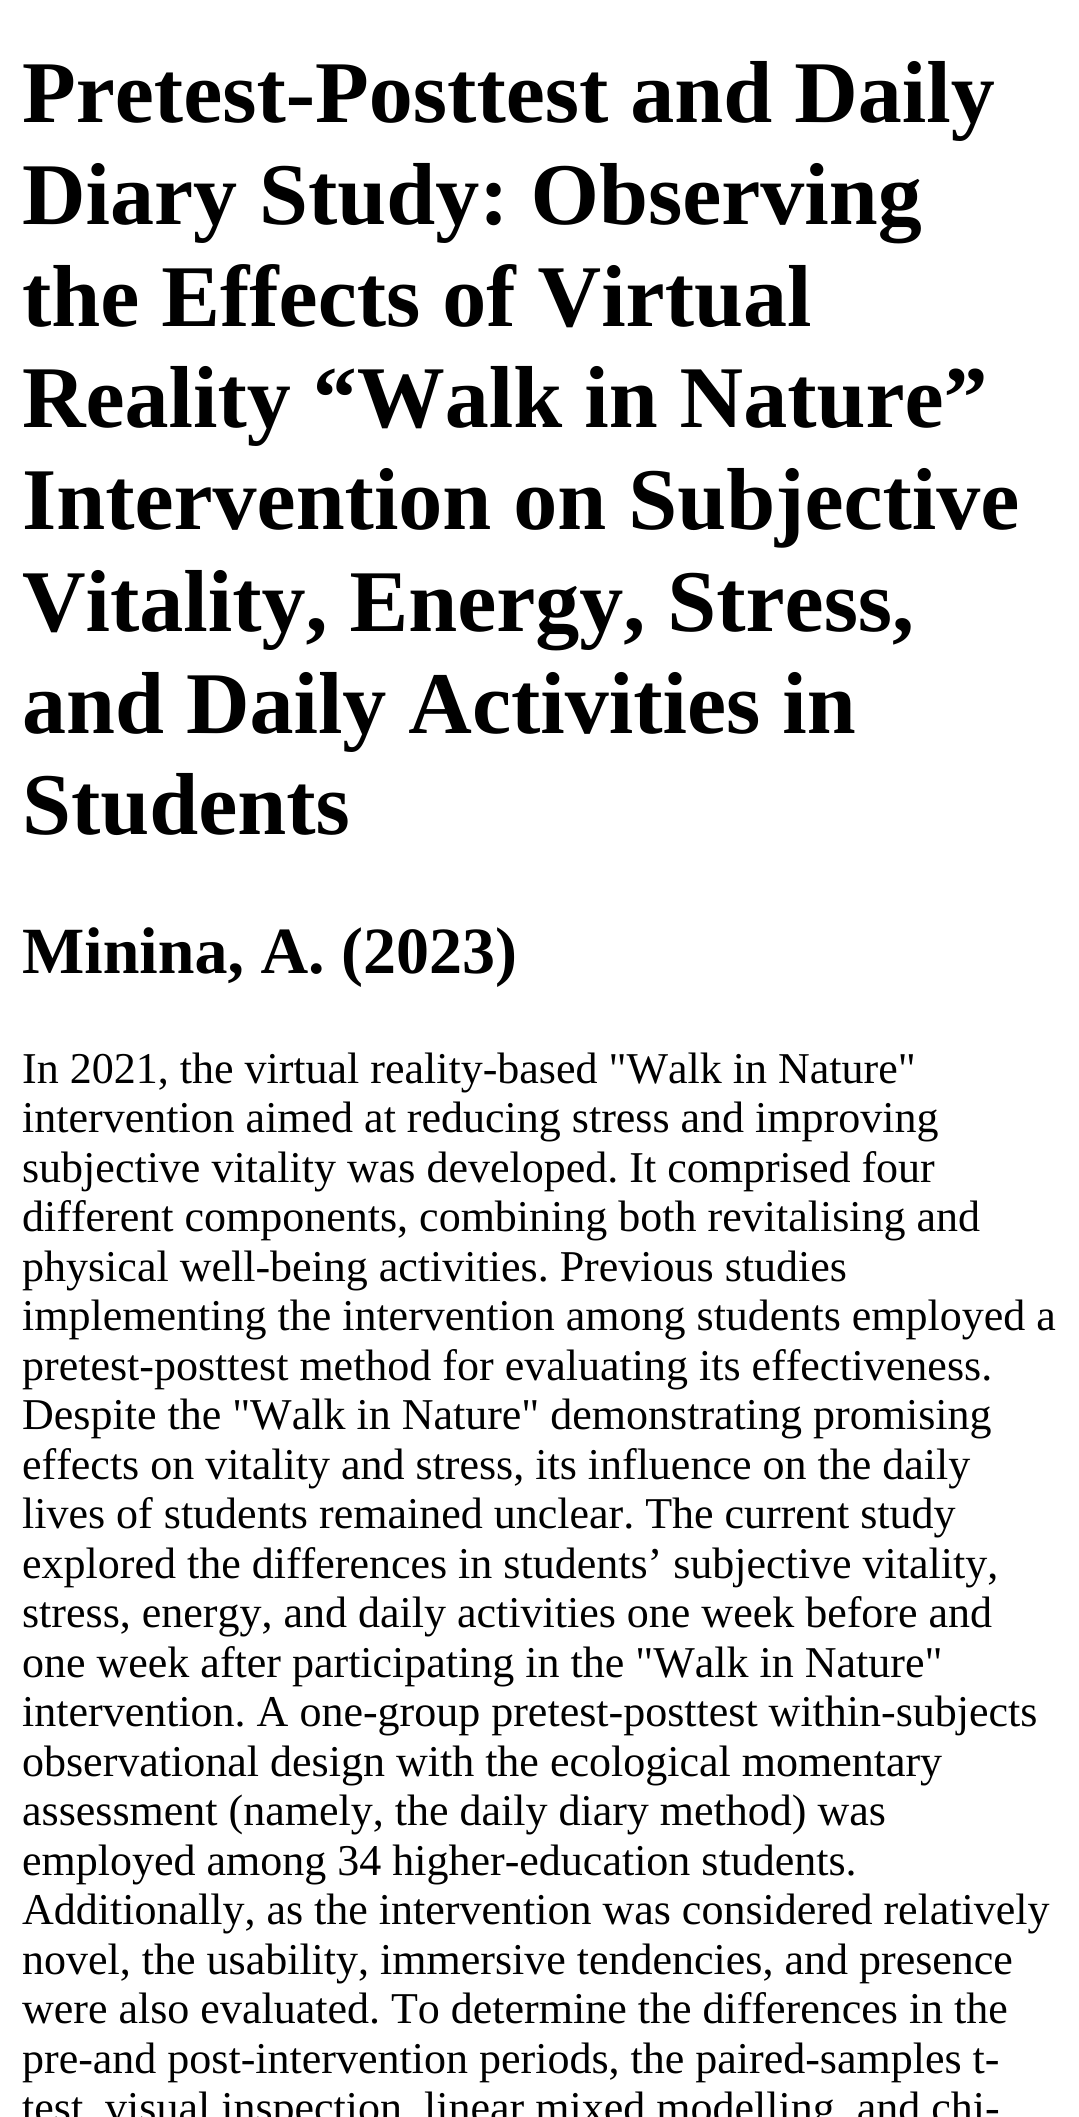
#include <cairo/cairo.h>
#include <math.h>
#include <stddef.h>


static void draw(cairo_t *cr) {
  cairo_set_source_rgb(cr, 1, 1, 1);
  cairo_paint(cr);
  cairo_select_font_face(cr, "Liberation Serif", CAIRO_FONT_SLANT_NORMAL, CAIRO_FONT_WEIGHT_BOLD);
  cairo_set_font_size(cr, 88);
  cairo_set_source_rgb(cr, 0, 0, 0);
  cairo_move_to(cr, 22, 122);
  cairo_show_text(cr, "Pretest-Posttest and Daily");
  cairo_move_to(cr, 22, 224);
  cairo_show_text(cr, "Diary Study: Observing");
  cairo_move_to(cr, 22, 326);
  cairo_show_text(cr, "the Effects of Virtual");
  cairo_move_to(cr, 22, 427);
  cairo_show_text(cr, "Reality “Walk in Nature”");
  cairo_move_to(cr, 22, 529);
  cairo_show_text(cr, "Intervention on Subjective");
  cairo_move_to(cr, 22, 631);
  cairo_show_text(cr, "Vitality, Energy, Stress,");
  cairo_move_to(cr, 22, 733);
  cairo_show_text(cr, "and Daily Activities in");
  cairo_move_to(cr, 22, 834);
  cairo_show_text(cr, "Students");
  cairo_set_font_size(cr, 66);
  cairo_move_to(cr, 22, 973);
  cairo_show_text(cr, "Minina, A. (2023)");
  cairo_select_font_face(cr, "Liberation Serif", CAIRO_FONT_SLANT_NORMAL, CAIRO_FONT_WEIGHT_NORMAL);
  cairo_set_font_size(cr, 44);
  cairo_move_to(cr, 22, 1083);
  cairo_show_text(cr, "In 2021, the virtual reality-based \"Walk in Nature\"");
  cairo_move_to(cr, 22, 1132);
  cairo_show_text(cr, "intervention aimed at reducing stress and improving");
  cairo_move_to(cr, 22, 1182);
  cairo_show_text(cr, "subjective vitality was developed. It comprised four");
  cairo_move_to(cr, 22, 1231);
  cairo_show_text(cr, "different components, combining both revitalising and");
  cairo_move_to(cr, 22, 1281);
  cairo_show_text(cr, "physical well-being activities. Previous studies");
  cairo_move_to(cr, 22, 1330);
  cairo_show_text(cr, "implementing the intervention among students employed a");
  cairo_move_to(cr, 22, 1380);
  cairo_show_text(cr, "pretest-posttest method for evaluating its effectiveness.");
  cairo_move_to(cr, 22, 1429);
  cairo_show_text(cr, "Despite the \"Walk in Nature\" demonstrating promising");
  cairo_move_to(cr, 22, 1479);
  cairo_show_text(cr, "effects on vitality and stress, its influence on the daily");
  cairo_move_to(cr, 22, 1528);
  cairo_show_text(cr, "lives of students remained unclear. The current study");
  cairo_move_to(cr, 22, 1578);
  cairo_show_text(cr, "explored the differences in students’ subjective vitality,");
  cairo_move_to(cr, 22, 1627);
  cairo_show_text(cr, "stress, energy, and daily activities one week before and");
  cairo_move_to(cr, 22, 1677);
  cairo_show_text(cr, "one week after participating in the \"Walk in Nature\"");
  cairo_move_to(cr, 22, 1726);
  cairo_show_text(cr, "intervention. A one-group pretest-posttest within-subjects");
  cairo_move_to(cr, 22, 1776);
  cairo_show_text(cr, "observational design with the ecological momentary");
  cairo_move_to(cr, 22, 1825);
  cairo_show_text(cr, "assessment (namely, the daily diary method) was");
  cairo_move_to(cr, 22, 1875);
  cairo_show_text(cr, "employed among 34 higher-education students.");
  cairo_move_to(cr, 22, 1924);
  cairo_show_text(cr, "Additionally, as the intervention was considered relatively");
  cairo_move_to(cr, 22, 1974);
  cairo_show_text(cr, "novel, the usability, immersive tendencies, and presence");
  cairo_move_to(cr, 22, 2023);
  cairo_show_text(cr, "were also evaluated. To determine the differences in the");
  cairo_move_to(cr, 22, 2073);
  cairo_show_text(cr, "pre-and post-intervention periods, the paired-samples t-");
  cairo_move_to(cr, 22, 2122);
  cairo_show_text(cr, "test, visual inspection, linear mixed modelling, and chi-");
}

int main(void) {
  cairo_surface_t *surface = cairo_image_surface_create(CAIRO_FORMAT_RGB24, 1079, 2117);
  cairo_t *cr = cairo_create(surface);
  cairo_font_options_t *options = cairo_font_options_create();
  cairo_font_options_set_hint_metrics(options, CAIRO_HINT_METRICS_OFF);
  cairo_font_options_set_hint_style(options, CAIRO_HINT_STYLE_NONE);
  cairo_set_font_options(cr, options);
  cairo_set_miter_limit(cr, 4);
  draw(cr);
  cairo_surface_write_to_png(surface, "out.png");
  cairo_font_options_destroy(options);
  cairo_destroy(cr);
  cairo_surface_destroy(surface);
  return 0;
}
